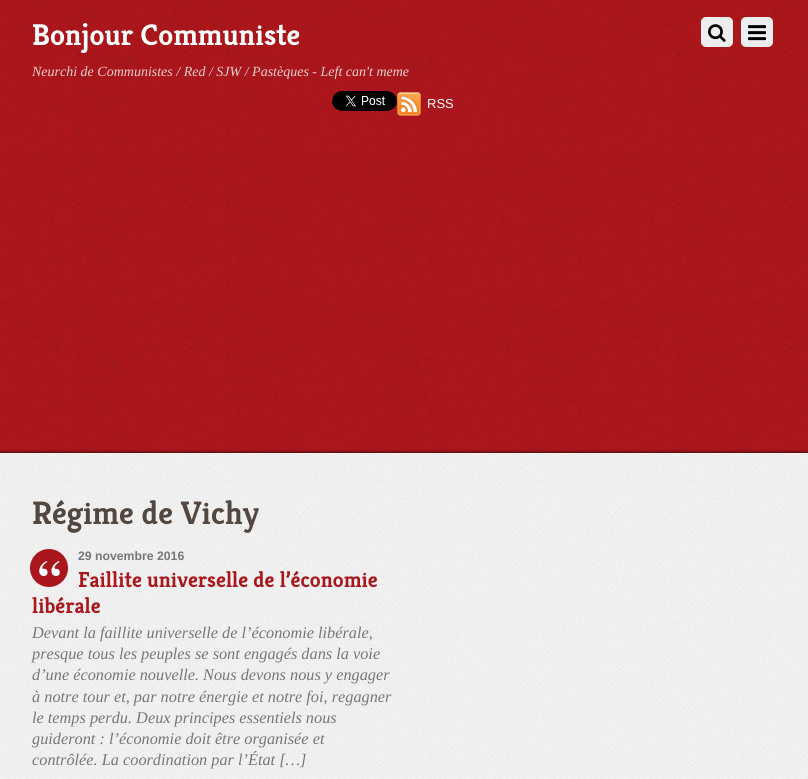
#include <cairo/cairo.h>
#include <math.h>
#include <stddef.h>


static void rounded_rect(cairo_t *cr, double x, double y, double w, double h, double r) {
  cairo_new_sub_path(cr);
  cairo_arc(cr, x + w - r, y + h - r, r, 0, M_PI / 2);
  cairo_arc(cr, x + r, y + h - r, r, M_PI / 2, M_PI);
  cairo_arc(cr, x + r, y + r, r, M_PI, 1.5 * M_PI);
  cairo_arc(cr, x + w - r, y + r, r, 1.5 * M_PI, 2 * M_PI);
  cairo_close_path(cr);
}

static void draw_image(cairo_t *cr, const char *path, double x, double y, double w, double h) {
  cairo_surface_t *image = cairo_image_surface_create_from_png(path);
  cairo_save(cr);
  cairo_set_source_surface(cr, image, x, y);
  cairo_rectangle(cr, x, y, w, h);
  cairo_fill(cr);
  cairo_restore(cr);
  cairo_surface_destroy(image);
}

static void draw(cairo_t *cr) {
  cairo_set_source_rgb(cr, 1, 1, 1);
  cairo_paint(cr);
  draw_image(cr, "images/1.png", 0, 0, 808, 452);
  cairo_set_source_rgb(cr, 238 / 255.0, 238 / 255.0, 238 / 255.0);
  rounded_rect(cr, 701, 17, 32, 30, 5);
  cairo_fill(cr);
  draw_image(cr, "images/2.png", 708, 24, 18, 18);
  rounded_rect(cr, 741, 17, 32, 30, 5);
  cairo_fill(cr);
  draw_image(cr, "images/3.png", 748, 25, 18, 16);
  draw_image(cr, "images/4.png", 332, 91, 65, 20);
  draw_image(cr, "images/5.png", 397, 92, 24, 24);
  cairo_set_source_rgba(cr, 0, 0, 0, 0.15);
  cairo_rectangle(cr, 0, 450, 808, 2);
  cairo_fill(cr);
  draw_image(cr, "images/6.png", 0, 453, 808, 326);
  cairo_set_source_rgba(cr, 1, 1, 1, 0.6);
  cairo_rectangle(cr, 0, 453, 808, 1);
  cairo_fill(cr);
  cairo_set_source_rgb(cr, 95 / 255.0, 12 / 255.0, 15 / 255.0);
  cairo_rectangle(cr, 0, 452, 808, 1);
  cairo_fill(cr);
  cairo_set_source_rgb(cr, 169 / 255.0, 22 / 255.0, 27 / 255.0);
  cairo_arc(cr, 49, 568, 19, 0, 2 * M_PI);
  cairo_fill(cr);
  draw_image(cr, "images/7.png", 39, 561, 21, 15);
  cairo_select_font_face(cr, "Kreon Light", CAIRO_FONT_SLANT_NORMAL, CAIRO_FONT_WEIGHT_NORMAL);
  cairo_set_font_size(cr, 30);
  cairo_set_source_rgb(cr, 1, 1, 1);
  cairo_move_to(cr, 32, 45);
  cairo_show_text(cr, "Bonjour Communiste");
  cairo_select_font_face(cr, "Liberation Serif", CAIRO_FONT_SLANT_ITALIC, CAIRO_FONT_WEIGHT_NORMAL);
  cairo_set_font_size(cr, 14);
  cairo_set_source_rgb(cr, 237 / 255.0, 208 / 255.0, 209 / 255.0);
  cairo_move_to(cr, 32, 76);
  cairo_show_text(cr, "Neurchi de Communistes / Red / SJW / Pastèques - Left can't meme");
  cairo_select_font_face(cr, "Liberation Sans", CAIRO_FONT_SLANT_NORMAL, CAIRO_FONT_WEIGHT_NORMAL);
  cairo_set_font_size(cr, 13);
  cairo_set_source_rgb(cr, 1, 1, 1);
  cairo_move_to(cr, 427, 108);
  cairo_show_text(cr, "RSS");
  cairo_select_font_face(cr, "Kreon Light", CAIRO_FONT_SLANT_NORMAL, CAIRO_FONT_WEIGHT_NORMAL);
  cairo_set_font_size(cr, 32.5);
  cairo_set_source_rgb(cr, 83 / 255.0, 71 / 255.0, 65 / 255.0);
  cairo_move_to(cr, 32, 524);
  cairo_show_text(cr, "Régime de Vichy");
  cairo_select_font_face(cr, "Liberation Sans", CAIRO_FONT_SLANT_NORMAL, CAIRO_FONT_WEIGHT_BOLD);
  cairo_set_font_size(cr, 12.25);
  cairo_set_source_rgb(cr, 119 / 255.0, 119 / 255.0, 119 / 255.0);
  cairo_move_to(cr, 78, 560);
  cairo_show_text(cr, "29 novembre 2016");
  cairo_select_font_face(cr, "Kreon Light", CAIRO_FONT_SLANT_NORMAL, CAIRO_FONT_WEIGHT_NORMAL);
  cairo_set_font_size(cr, 21.75);
  cairo_set_source_rgb(cr, 169 / 255.0, 22 / 255.0, 27 / 255.0);
  cairo_move_to(cr, 78, 587);
  cairo_show_text(cr, "Faillite universelle de l’économie");
  cairo_move_to(cr, 32, 613);
  cairo_show_text(cr, "libérale");
  cairo_select_font_face(cr, "Liberation Serif", CAIRO_FONT_SLANT_ITALIC, CAIRO_FONT_WEIGHT_NORMAL);
  cairo_set_font_size(cr, 16.3);
  cairo_set_source_rgb(cr, 119 / 255.0, 119 / 255.0, 119 / 255.0);
  cairo_move_to(cr, 32, 638);
  cairo_show_text(cr, "Devant la faillite universelle de l’économie libérale,");
  cairo_move_to(cr, 32, 659);
  cairo_show_text(cr, "presque tous les peuples se sont engagés dans la voie");
  cairo_move_to(cr, 32, 680);
  cairo_show_text(cr, "d’une économie nouvelle. Nous devons nous y engager");
  cairo_move_to(cr, 32, 702);
  cairo_show_text(cr, "à notre tour et, par notre énergie et notre foi, regagner");
  cairo_move_to(cr, 32, 723);
  cairo_show_text(cr, "le temps perdu. Deux principes essentiels nous");
  cairo_move_to(cr, 32, 744);
  cairo_show_text(cr, "guideront : l’économie doit être organisée et");
  cairo_move_to(cr, 32, 765);
  cairo_show_text(cr, "contrôlée. La coordination par l’État […]");
}

int main(void) {
  cairo_surface_t *surface = cairo_image_surface_create(CAIRO_FORMAT_RGB24, 808, 779);
  cairo_t *cr = cairo_create(surface);
  cairo_font_options_t *options = cairo_font_options_create();
  cairo_font_options_set_hint_metrics(options, CAIRO_HINT_METRICS_OFF);
  cairo_font_options_set_hint_style(options, CAIRO_HINT_STYLE_NONE);
  cairo_set_font_options(cr, options);
  cairo_set_miter_limit(cr, 4);
  draw(cr);
  cairo_surface_write_to_png(surface, "out.png");
  cairo_font_options_destroy(options);
  cairo_destroy(cr);
  cairo_surface_destroy(surface);
  return 0;
}
